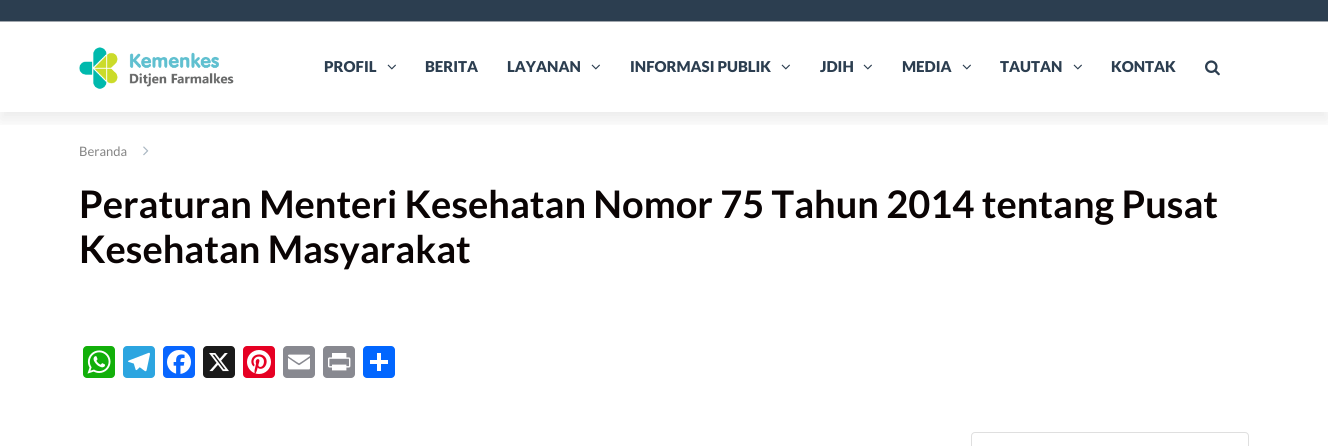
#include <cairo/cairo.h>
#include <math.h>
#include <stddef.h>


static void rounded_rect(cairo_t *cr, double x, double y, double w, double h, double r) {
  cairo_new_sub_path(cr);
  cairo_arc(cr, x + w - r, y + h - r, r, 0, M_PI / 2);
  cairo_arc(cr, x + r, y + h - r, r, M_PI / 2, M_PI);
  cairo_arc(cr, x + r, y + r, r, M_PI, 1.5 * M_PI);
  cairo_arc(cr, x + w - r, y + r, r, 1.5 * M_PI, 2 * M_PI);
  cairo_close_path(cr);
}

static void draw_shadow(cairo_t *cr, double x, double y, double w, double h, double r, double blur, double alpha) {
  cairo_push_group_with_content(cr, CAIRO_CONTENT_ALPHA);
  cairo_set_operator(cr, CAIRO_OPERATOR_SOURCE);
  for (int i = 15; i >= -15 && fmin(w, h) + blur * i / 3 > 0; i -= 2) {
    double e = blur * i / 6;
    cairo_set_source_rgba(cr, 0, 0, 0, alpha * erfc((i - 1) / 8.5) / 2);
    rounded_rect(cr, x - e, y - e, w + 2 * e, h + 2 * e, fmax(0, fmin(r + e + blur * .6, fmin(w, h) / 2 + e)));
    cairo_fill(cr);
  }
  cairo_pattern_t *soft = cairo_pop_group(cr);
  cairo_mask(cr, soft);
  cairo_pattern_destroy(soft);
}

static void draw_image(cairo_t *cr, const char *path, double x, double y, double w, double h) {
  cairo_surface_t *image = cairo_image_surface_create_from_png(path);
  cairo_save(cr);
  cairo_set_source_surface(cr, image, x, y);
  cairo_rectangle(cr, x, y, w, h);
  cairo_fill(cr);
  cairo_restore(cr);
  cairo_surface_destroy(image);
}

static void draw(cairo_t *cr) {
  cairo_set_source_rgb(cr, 1, 1, 1);
  cairo_paint(cr);
  cairo_set_source_rgb(cr, 44 / 255.0, 62 / 255.0, 80 / 255.0);
  cairo_rectangle(cr, 0, 0, 1328, 21);
  cairo_fill(cr);
  cairo_save(cr);
  cairo_rectangle(cr, 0, 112, 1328, 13);
  cairo_clip(cr);
  cairo_set_source_rgb(cr, 0, 0, 0);
  draw_shadow(cr, 0, 29, 1328, 91, 0, 8, 0.08);
  cairo_restore(cr);
  cairo_set_source_rgb(cr, 160 / 255.0, 166 / 255.0, 173 / 255.0);
  cairo_rectangle(cr, 0, 21, 1328, 1);
  cairo_fill(cr);
  draw_image(cr, "images/1.png", 79, 47, 155, 42);
  draw_image(cr, "images/2.png", 387, 64, 9, 6);
  draw_image(cr, "images/2.png", 591, 64, 9, 6);
  draw_image(cr, "images/2.png", 781, 64, 9, 6);
  draw_image(cr, "images/2.png", 863, 64, 9, 6);
  draw_image(cr, "images/2.png", 962, 64, 9, 6);
  draw_image(cr, "images/2.png", 1073, 64, 9, 6);
  draw_image(cr, "images/3.png", 1205, 60, 15, 16);
  draw_image(cr, "images/4.png", 143, 146, 6, 10);
  cairo_set_source_rgb(cr, 18 / 255.0, 175 / 255.0, 10 / 255.0);
  rounded_rect(cr, 83, 346, 32, 32, 4);
  cairo_fill(cr);
  draw_image(cr, "images/5.png", 87, 350, 24, 24);
  cairo_set_source_rgb(cr, 44 / 255.0, 165 / 255.0, 224 / 255.0);
  rounded_rect(cr, 123, 346, 32, 32, 4);
  cairo_fill(cr);
  draw_image(cr, "images/6.png", 128, 352, 22, 20);
  cairo_set_source_rgb(cr, 8 / 255.0, 102 / 255.0, 1);
  rounded_rect(cr, 163, 346, 32, 32, 4);
  cairo_fill(cr);
  draw_image(cr, "images/7.png", 167, 350, 24, 24);
  cairo_set_source_rgb(cr, 26 / 255.0, 26 / 255.0, 26 / 255.0);
  rounded_rect(cr, 203, 346, 32, 32, 4);
  cairo_fill(cr);
  draw_image(cr, "images/8.png", 209, 353, 20, 19);
  cairo_set_source_rgb(cr, 230 / 255.0, 0, 35 / 255.0);
  rounded_rect(cr, 243, 346, 32, 32, 4);
  cairo_fill(cr);
  draw_image(cr, "images/9.png", 247, 350, 24, 24);
  cairo_set_source_rgb(cr, 136 / 255.0, 137 / 255.0, 144 / 255.0);
  rounded_rect(cr, 283, 346, 32, 32, 4);
  cairo_fill(cr);
  draw_image(cr, "images/10.png", 288, 354, 22, 16);
  rounded_rect(cr, 323, 346, 32, 32, 4);
  cairo_fill(cr);
  draw_image(cr, "images/11.png", 328, 353, 23, 18);
  cairo_set_source_rgb(cr, 1 / 255.0, 102 / 255.0, 1);
  rounded_rect(cr, 363, 346, 32, 32, 4);
  cairo_fill(cr);
  cairo_set_source_rgb(cr, 1, 1, 1);
  cairo_rectangle(cr, 377, 353, 4, 18);
  cairo_fill(cr);
  cairo_rectangle(cr, 370, 360, 18, 4);
  cairo_fill(cr);
  cairo_new_path(cr);
  cairo_move_to(cr, 975, 432.5);
  cairo_line_to(cr, 1245, 432.5);
  cairo_curve_to(cr, 1247, 432.5, 1248.5, 434, 1248.5, 436);
  cairo_line_to(cr, 1248.5, 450.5);
  cairo_line_to(cr, 971.5, 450.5);
  cairo_line_to(cr, 971.5, 436);
  cairo_curve_to(cr, 971.5, 434, 973, 432.5, 975, 432.5);
  cairo_close_path(cr);
  cairo_set_source_rgb(cr, 223 / 255.0, 223 / 255.0, 223 / 255.0);
  cairo_set_line_width(cr, 1);
  cairo_stroke(cr);
  cairo_select_font_face(cr, "Lato Black", CAIRO_FONT_SLANT_NORMAL, CAIRO_FONT_WEIGHT_NORMAL);
  cairo_set_font_size(cr, 15);
  cairo_set_source_rgb(cr, 44 / 255.0, 62 / 255.0, 80 / 255.0);
  cairo_move_to(cr, 324, 72);
  cairo_show_text(cr, "PROFIL");
  cairo_move_to(cr, 425, 72);
  cairo_show_text(cr, "BERITA");
  cairo_move_to(cr, 507, 72);
  cairo_show_text(cr, "LAYANAN");
  cairo_move_to(cr, 630, 72);
  cairo_show_text(cr, "INFORMASI PUBLIK");
  cairo_move_to(cr, 820, 72);
  cairo_show_text(cr, "JDIH");
  cairo_move_to(cr, 902, 72);
  cairo_show_text(cr, "MEDIA");
  cairo_move_to(cr, 1000, 72);
  cairo_show_text(cr, "TAUTAN");
  cairo_move_to(cr, 1111, 72);
  cairo_show_text(cr, "KONTAK");
  cairo_select_font_face(cr, "Lato", CAIRO_FONT_SLANT_NORMAL, CAIRO_FONT_WEIGHT_NORMAL);
  cairo_set_font_size(cr, 13);
  cairo_set_source_rgb(cr, 132 / 255.0, 132 / 255.0, 132 / 255.0);
  cairo_move_to(cr, 79, 156);
  cairo_show_text(cr, "Beranda");
  cairo_select_font_face(cr, "Lato", CAIRO_FONT_SLANT_NORMAL, CAIRO_FONT_WEIGHT_BOLD);
  cairo_set_font_size(cr, 38);
  cairo_set_source_rgb(cr, 10 / 255.0, 4 / 255.0, 4 / 255.0);
  cairo_move_to(cr, 79, 218);
  cairo_show_text(cr, "Peraturan Menteri Kesehatan Nomor 75 Tahun 2014 tentang Pusat");
  cairo_move_to(cr, 79, 263);
  cairo_show_text(cr, "Kesehatan Masyarakat");
}

int main(void) {
  cairo_surface_t *surface = cairo_image_surface_create(CAIRO_FORMAT_RGB24, 1328, 446);
  cairo_t *cr = cairo_create(surface);
  cairo_font_options_t *options = cairo_font_options_create();
  cairo_font_options_set_hint_metrics(options, CAIRO_HINT_METRICS_OFF);
  cairo_font_options_set_hint_style(options, CAIRO_HINT_STYLE_NONE);
  cairo_set_font_options(cr, options);
  cairo_set_miter_limit(cr, 4);
  draw(cr);
  cairo_surface_write_to_png(surface, "out.png");
  cairo_font_options_destroy(options);
  cairo_destroy(cr);
  cairo_surface_destroy(surface);
  return 0;
}
